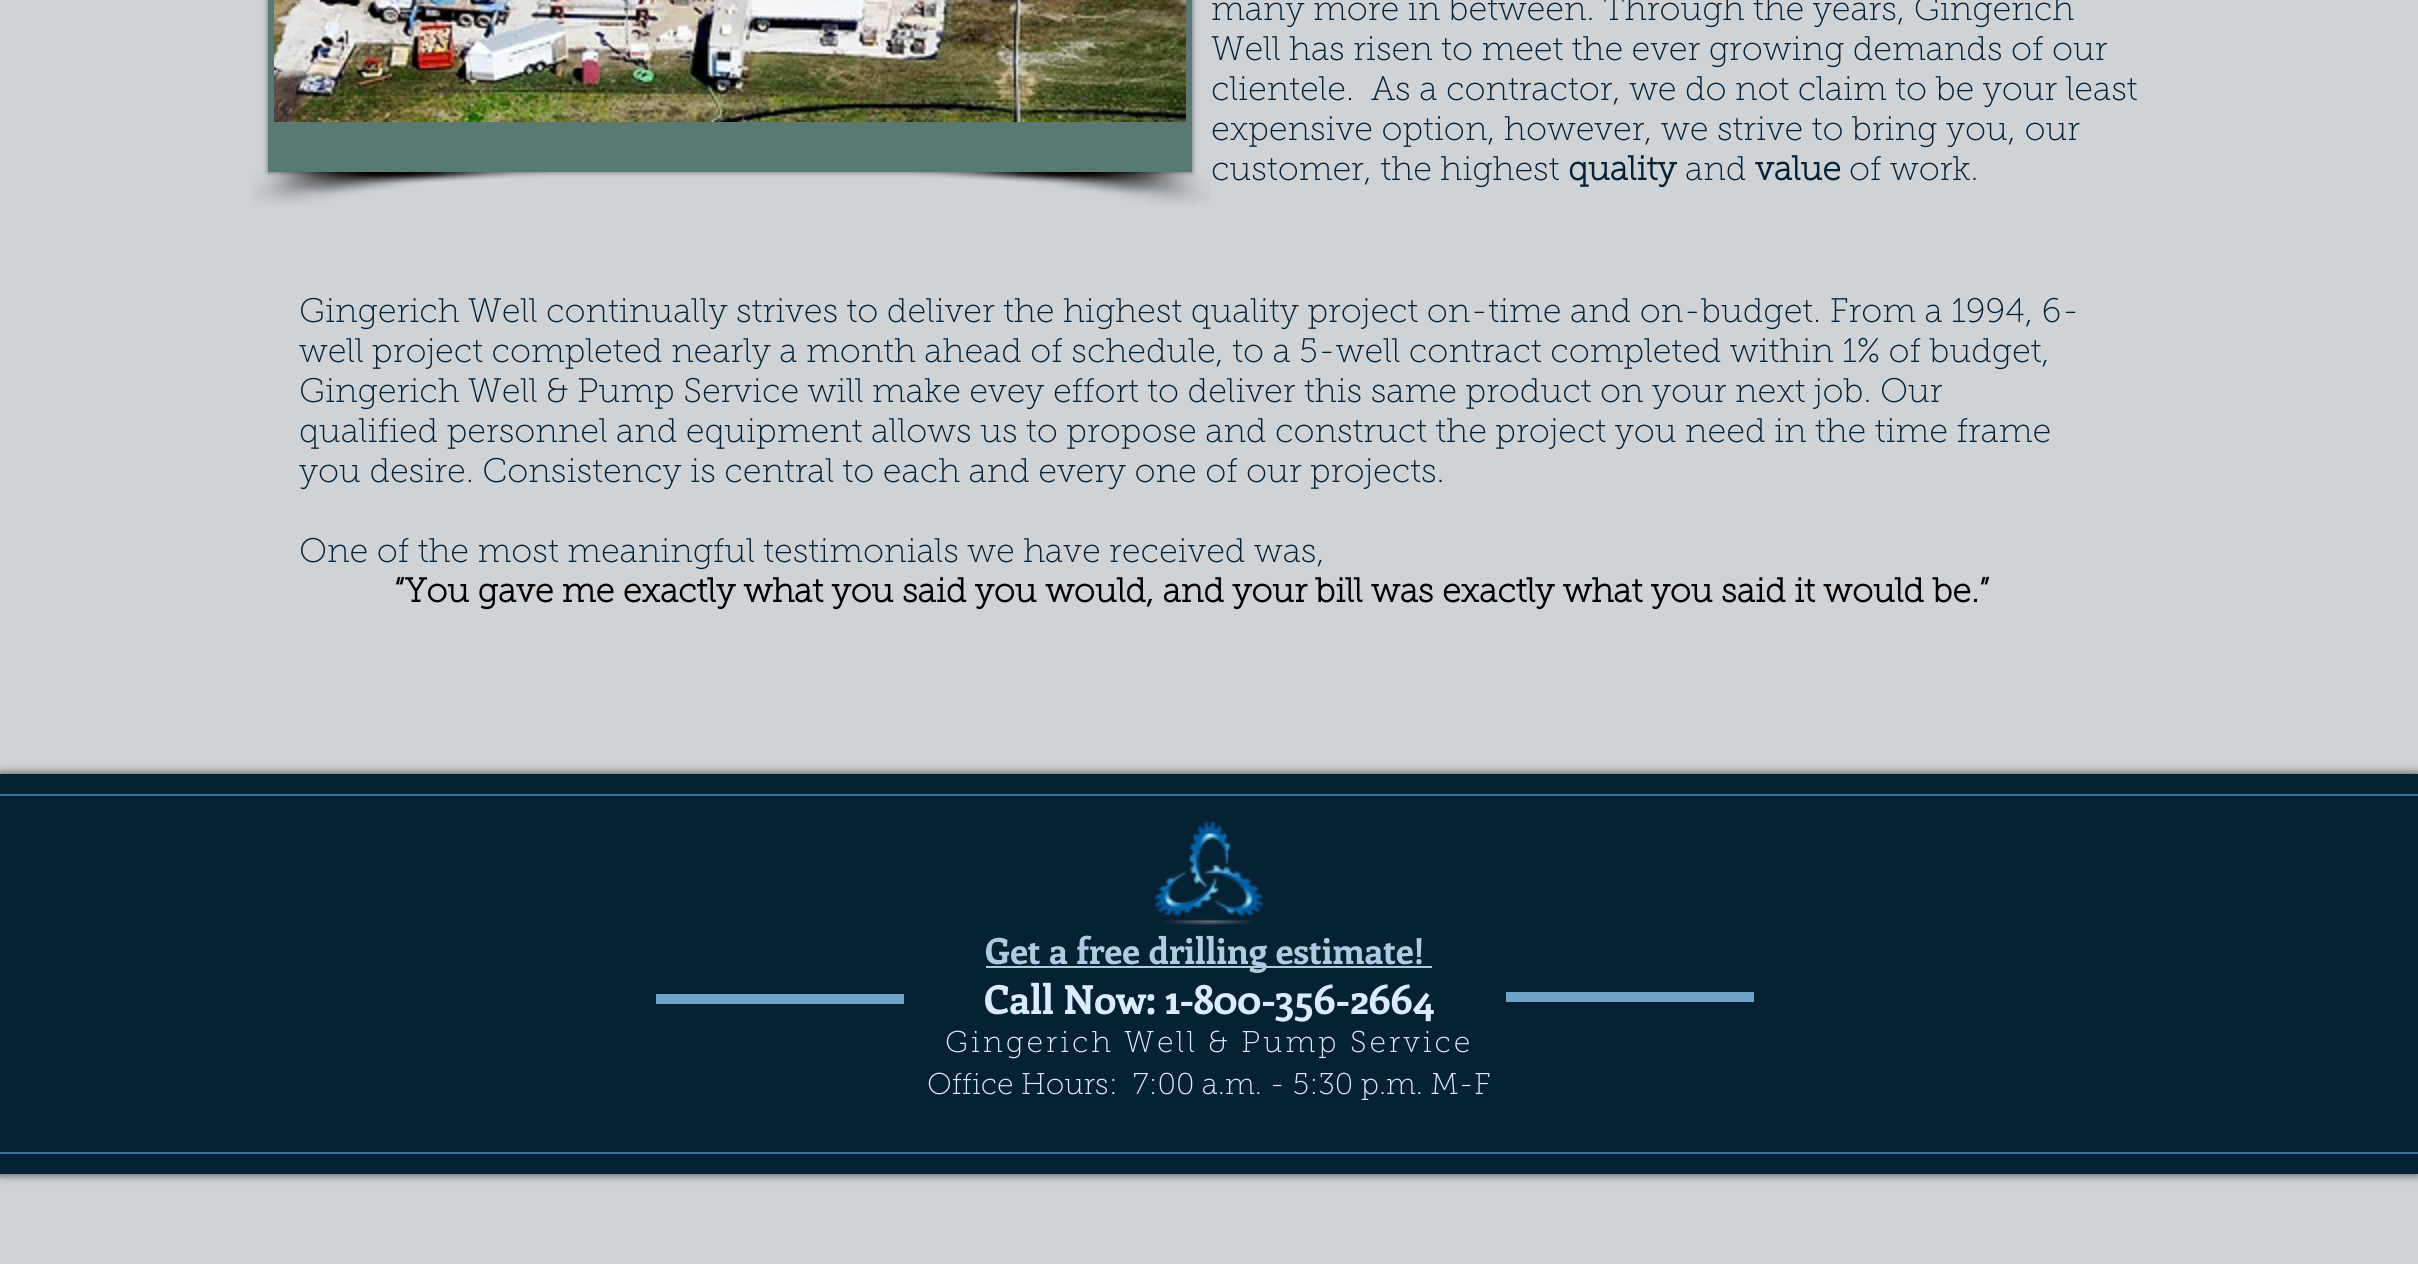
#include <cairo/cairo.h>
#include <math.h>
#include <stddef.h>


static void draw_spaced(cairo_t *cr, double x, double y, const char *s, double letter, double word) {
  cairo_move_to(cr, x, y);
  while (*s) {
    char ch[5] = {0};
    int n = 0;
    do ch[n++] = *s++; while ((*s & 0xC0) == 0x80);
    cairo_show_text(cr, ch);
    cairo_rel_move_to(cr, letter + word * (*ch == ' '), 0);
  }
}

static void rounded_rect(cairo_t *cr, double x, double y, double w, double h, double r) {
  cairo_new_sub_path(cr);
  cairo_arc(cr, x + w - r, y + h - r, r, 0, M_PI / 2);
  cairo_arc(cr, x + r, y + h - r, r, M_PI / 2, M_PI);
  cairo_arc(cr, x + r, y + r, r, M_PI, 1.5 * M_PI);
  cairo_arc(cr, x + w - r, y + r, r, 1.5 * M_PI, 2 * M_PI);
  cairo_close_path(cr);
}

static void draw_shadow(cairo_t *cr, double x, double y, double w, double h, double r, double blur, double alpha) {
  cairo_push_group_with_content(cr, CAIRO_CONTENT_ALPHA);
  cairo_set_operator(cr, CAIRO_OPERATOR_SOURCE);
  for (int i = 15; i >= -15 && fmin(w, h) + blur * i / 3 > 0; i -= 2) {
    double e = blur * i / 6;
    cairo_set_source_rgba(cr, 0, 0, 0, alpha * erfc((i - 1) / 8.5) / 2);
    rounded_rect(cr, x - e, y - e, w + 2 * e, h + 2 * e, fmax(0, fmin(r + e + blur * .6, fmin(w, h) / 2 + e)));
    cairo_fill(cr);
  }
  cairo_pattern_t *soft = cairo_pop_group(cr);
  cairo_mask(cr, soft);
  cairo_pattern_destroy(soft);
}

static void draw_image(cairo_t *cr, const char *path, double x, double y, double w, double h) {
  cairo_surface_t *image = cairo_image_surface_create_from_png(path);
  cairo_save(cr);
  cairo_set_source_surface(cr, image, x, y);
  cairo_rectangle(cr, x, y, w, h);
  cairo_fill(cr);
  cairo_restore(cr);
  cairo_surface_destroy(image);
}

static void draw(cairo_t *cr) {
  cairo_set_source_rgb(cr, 208 / 255.0, 211 / 255.0, 214 / 255.0);
  cairo_paint(cr);
  cairo_set_source_rgb(cr, 0, 0, 0);
  draw_shadow(cr, 268, -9, 924, 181, 0, 3, 0.5);
  cairo_set_source_rgb(cr, 90 / 255.0, 121 / 255.0, 114 / 255.0);
  cairo_rectangle(cr, 268, 0, 924, 172);
  cairo_fill(cr);
  draw_image(cr, "images/1.png", 274, 0, 912, 122);
  draw_image(cr, "images/2.png", 251, 172, 297, 35);
  draw_image(cr, "images/3.png", 912, 172, 297, 35);
  cairo_set_source_rgb(cr, 0, 0, 0);
  draw_shadow(cr, 0, 774, 2418, 400, 0, 5, 0.7);
  cairo_set_source_rgb(cr, 6 / 255.0, 33 / 255.0, 52 / 255.0);
  cairo_rectangle(cr, 0, 774, 2418, 400);
  cairo_fill(cr);
  cairo_set_source_rgb(cr, 57 / 255.0, 114 / 255.0, 155 / 255.0);
  cairo_rectangle(cr, 0, 794, 2418, 2);
  cairo_fill(cr);
  cairo_rectangle(cr, 0, 1152, 2418, 2);
  cairo_fill(cr);
  draw_image(cr, "images/4.png", 1153, 821, 112, 104);
  cairo_set_source_rgb(cr, 175 / 255.0, 203 / 255.0, 224 / 255.0);
  cairo_rectangle(cr, 986, 966, 446, 2);
  cairo_fill(cr);
  cairo_set_source_rgb(cr, 110 / 255.0, 164 / 255.0, 202 / 255.0);
  cairo_rectangle(cr, 656, 994, 248, 10);
  cairo_fill(cr);
  cairo_rectangle(cr, 1506, 992, 248, 10);
  cairo_fill(cr);
  cairo_select_font_face(cr, "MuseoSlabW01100 Thin", CAIRO_FONT_SLANT_NORMAL, CAIRO_FONT_WEIGHT_NORMAL);
  cairo_set_font_size(cr, 34);
  cairo_set_source_rgb(cr, 6 / 255.0, 33 / 255.0, 52 / 255.0);
  cairo_move_to(cr, 1211, 20);
  cairo_show_text(cr, "many more in between. Through the years, Gingerich");
  cairo_move_to(cr, 1211, 60);
  cairo_show_text(cr, "Well has risen to meet the ever growing demands of our");
  cairo_move_to(cr, 1211, 100);
  cairo_show_text(cr, "clientele.  As a contractor, we do not claim to be your least");
  cairo_move_to(cr, 1211, 140);
  cairo_show_text(cr, "expensive option, however, we strive to bring you, our");
  cairo_move_to(cr, 1211, 180);
  cairo_show_text(cr, "customer, the highest");
  cairo_select_font_face(cr, "MuseoSlabW01100", CAIRO_FONT_SLANT_NORMAL, CAIRO_FONT_WEIGHT_BOLD);
  cairo_move_to(cr, 1568, 180);
  cairo_show_text(cr, "quality");
  cairo_select_font_face(cr, "MuseoSlabW01100 Thin", CAIRO_FONT_SLANT_NORMAL, CAIRO_FONT_WEIGHT_NORMAL);
  cairo_move_to(cr, 1685, 180);
  cairo_show_text(cr, "and");
  cairo_select_font_face(cr, "MuseoSlabW01100", CAIRO_FONT_SLANT_NORMAL, CAIRO_FONT_WEIGHT_BOLD);
  cairo_move_to(cr, 1755, 180);
  cairo_show_text(cr, "value");
  cairo_select_font_face(cr, "MuseoSlabW01100 Thin", CAIRO_FONT_SLANT_NORMAL, CAIRO_FONT_WEIGHT_NORMAL);
  cairo_move_to(cr, 1849, 180);
  cairo_show_text(cr, "of work.");
  cairo_move_to(cr, 299, 322);
  cairo_show_text(cr, "Gingerich Well continually strives to deliver the highest quality project on-time and on-budget. From a 1994, 6-");
  cairo_move_to(cr, 299, 362);
  cairo_show_text(cr, "well project completed nearly a month ahead of schedule, to a 5-well contract completed within 1% of budget,");
  cairo_move_to(cr, 299, 402);
  cairo_show_text(cr, "Gingerich Well & Pump Service will make evey effort to deliver this same product on your next job. Our");
  cairo_move_to(cr, 299, 442);
  cairo_show_text(cr, "qualified personnel and equipment allows us to propose and construct the project you need in the time frame");
  cairo_move_to(cr, 299, 482);
  cairo_show_text(cr, "you desire. Consistency is central to each and every one of our projects.");
  cairo_move_to(cr, 299, 562);
  cairo_show_text(cr, "One of the most meaningful testimonials we have received was,");
  cairo_select_font_face(cr, "MuseoSlabW01100", CAIRO_FONT_SLANT_NORMAL, CAIRO_FONT_WEIGHT_BOLD);
  cairo_set_source_rgb(cr, 0, 0, 0);
  cairo_move_to(cr, 394, 602);
  cairo_show_text(cr, "“You gave me exactly what you said you would, and your bill was exactly what you said it would be.”");
  cairo_select_font_face(cr, "Enriqueta", CAIRO_FONT_SLANT_NORMAL, CAIRO_FONT_WEIGHT_BOLD);
  cairo_set_font_size(cr, 36);
  cairo_set_source_rgb(cr, 175 / 255.0, 203 / 255.0, 224 / 255.0);
  cairo_move_to(cr, 985, 964);
  cairo_show_text(cr, "Get a free drilling estimate!");
  cairo_set_font_size(cr, 40);
  cairo_set_source_rgb(cr, 218 / 255.0, 237 / 255.0, 1);
  cairo_move_to(cr, 984, 1014);
  cairo_show_text(cr, "Call Now: 1-800-356-2664");
  cairo_select_font_face(cr, "MuseoSlabW01100 Thin", CAIRO_FONT_SLANT_NORMAL, CAIRO_FONT_WEIGHT_NORMAL);
  cairo_set_font_size(cr, 30);
  draw_spaced(cr, 945, 1052, "Gingerich Well & Pump Service", 3, 0);
  cairo_move_to(cr, 927, 1094);
  cairo_show_text(cr, "Office Hours:  7:00 a.m. - 5:30 p.m. M-F");
}

int main(void) {
  cairo_surface_t *surface = cairo_image_surface_create(CAIRO_FORMAT_RGB24, 2418, 1264);
  cairo_t *cr = cairo_create(surface);
  cairo_font_options_t *options = cairo_font_options_create();
  cairo_font_options_set_hint_metrics(options, CAIRO_HINT_METRICS_OFF);
  cairo_font_options_set_hint_style(options, CAIRO_HINT_STYLE_NONE);
  cairo_set_font_options(cr, options);
  cairo_set_miter_limit(cr, 4);
  draw(cr);
  cairo_surface_write_to_png(surface, "out.png");
  cairo_font_options_destroy(options);
  cairo_destroy(cr);
  cairo_surface_destroy(surface);
  return 0;
}
